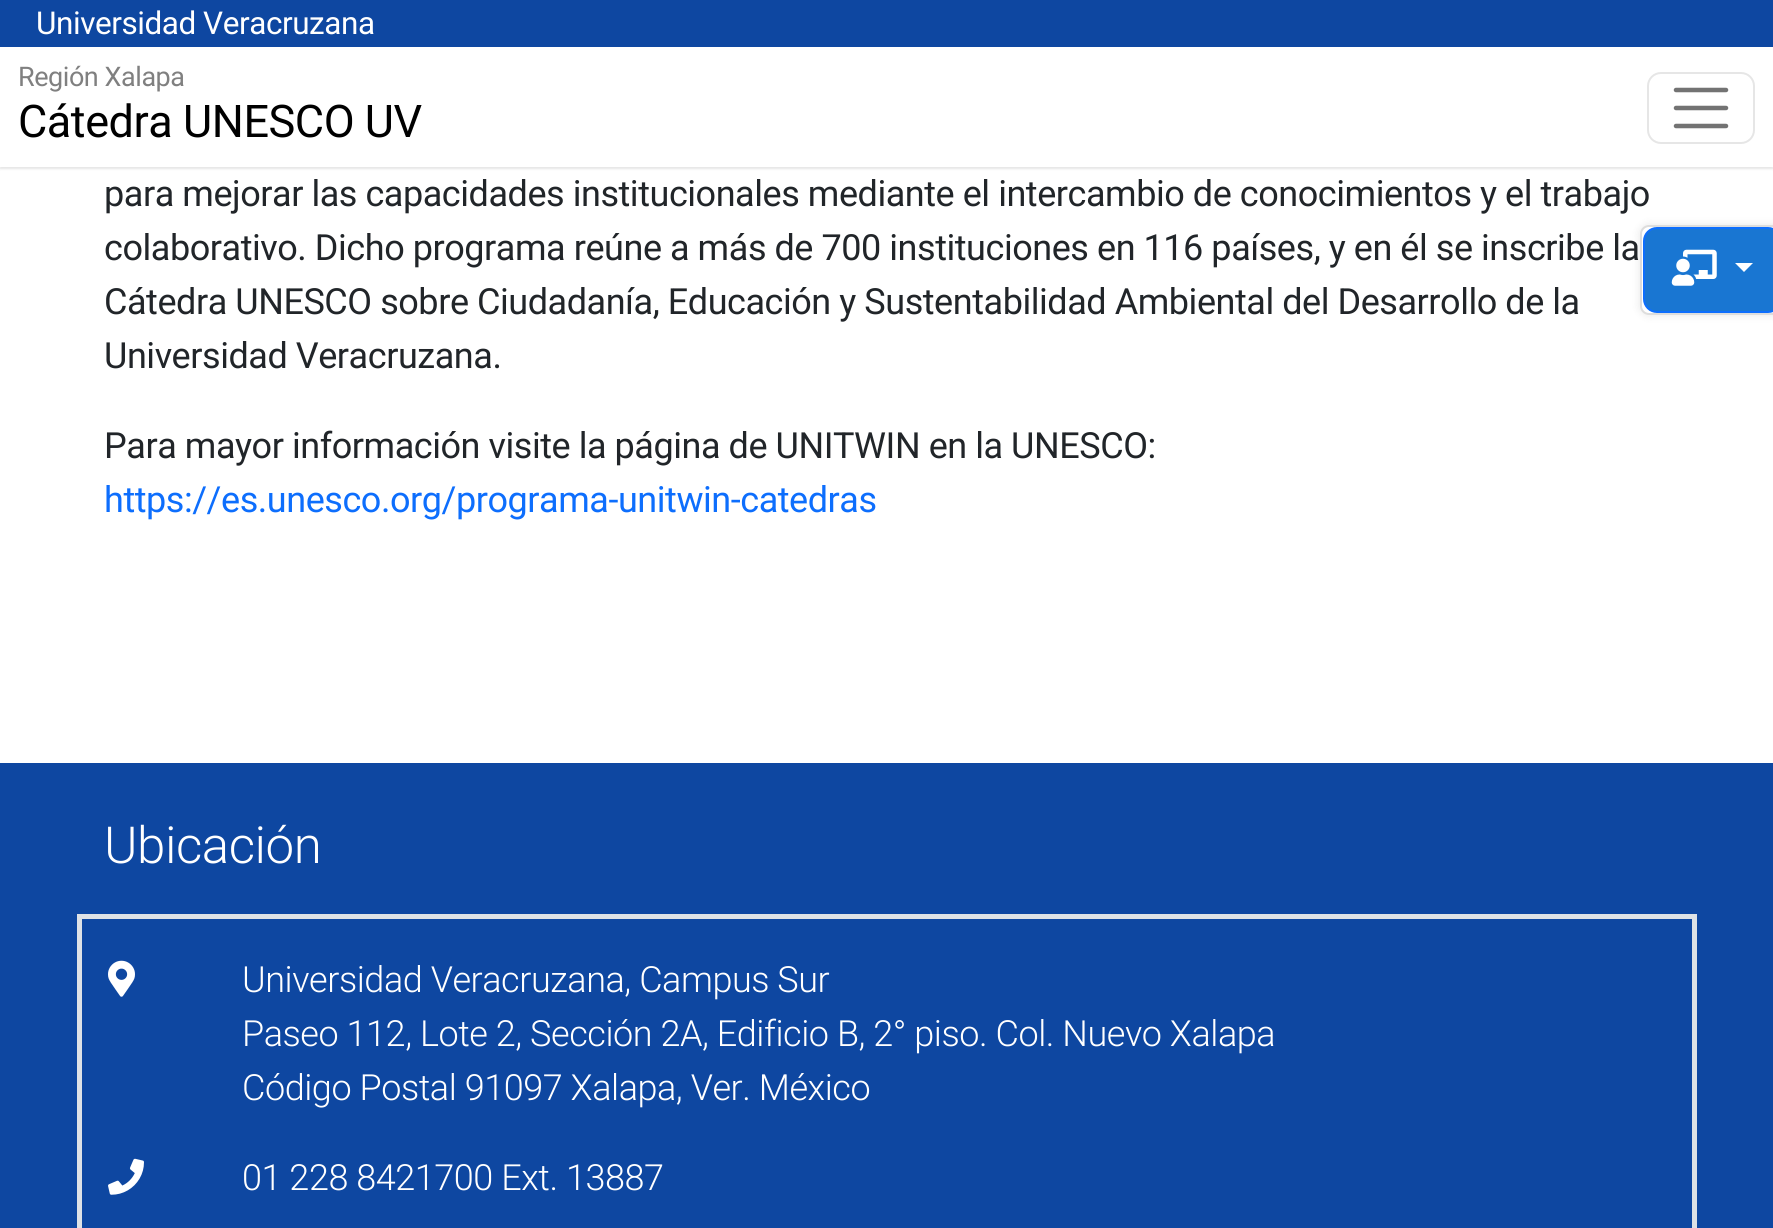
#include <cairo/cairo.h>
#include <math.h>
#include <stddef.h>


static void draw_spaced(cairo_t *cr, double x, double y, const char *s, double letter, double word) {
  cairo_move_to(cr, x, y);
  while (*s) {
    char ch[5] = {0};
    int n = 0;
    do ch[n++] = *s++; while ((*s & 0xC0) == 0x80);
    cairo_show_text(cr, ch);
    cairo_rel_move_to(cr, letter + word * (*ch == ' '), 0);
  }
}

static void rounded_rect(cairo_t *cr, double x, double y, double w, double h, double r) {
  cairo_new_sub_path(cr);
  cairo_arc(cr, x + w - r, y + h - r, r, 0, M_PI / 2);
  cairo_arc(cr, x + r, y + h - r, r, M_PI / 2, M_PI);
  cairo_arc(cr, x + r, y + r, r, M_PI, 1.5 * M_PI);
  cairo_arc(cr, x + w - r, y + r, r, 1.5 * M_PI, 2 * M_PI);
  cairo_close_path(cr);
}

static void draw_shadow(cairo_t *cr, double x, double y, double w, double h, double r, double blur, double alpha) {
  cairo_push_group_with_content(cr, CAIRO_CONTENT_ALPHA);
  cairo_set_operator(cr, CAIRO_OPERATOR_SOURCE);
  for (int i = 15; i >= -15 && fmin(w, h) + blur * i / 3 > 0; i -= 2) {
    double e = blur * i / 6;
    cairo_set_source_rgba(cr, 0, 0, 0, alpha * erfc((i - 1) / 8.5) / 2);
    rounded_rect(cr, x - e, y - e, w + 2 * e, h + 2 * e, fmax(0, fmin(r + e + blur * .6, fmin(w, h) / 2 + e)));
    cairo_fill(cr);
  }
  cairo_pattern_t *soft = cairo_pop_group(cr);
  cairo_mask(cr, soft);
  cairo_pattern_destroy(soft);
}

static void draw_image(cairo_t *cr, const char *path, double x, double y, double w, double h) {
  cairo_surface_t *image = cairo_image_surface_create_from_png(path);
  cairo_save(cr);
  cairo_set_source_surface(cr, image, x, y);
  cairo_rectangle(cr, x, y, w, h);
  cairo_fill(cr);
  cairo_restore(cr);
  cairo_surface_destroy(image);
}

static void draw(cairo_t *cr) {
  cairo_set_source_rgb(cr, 1, 1, 1);
  cairo_paint(cr);
  cairo_set_source_rgb(cr, 0, 0, 0);
  draw_shadow(cr, 0, 2, 1773, 167, 0, 1, 0.1);
  cairo_set_source_rgb(cr, 1, 1, 1);
  cairo_rectangle(cr, 0, 47, 1773, 120);
  cairo_fill(cr);
  cairo_set_source_rgb(cr, 14 / 255.0, 71 / 255.0, 161 / 255.0);
  cairo_rectangle(cr, 0, 0, 1773, 47);
  cairo_fill(cr);
  rounded_rect(cr, 1648, 73, 106, 70, 13);
  cairo_set_source_rgb(cr, 230 / 255.0, 230 / 255.0, 230 / 255.0);
  cairo_stroke(cr);
  cairo_new_path(cr);
  cairo_move_to(cr, 1676, 90);
  cairo_line_to(cr, 1726, 90);
  cairo_move_to(cr, 1676, 108);
  cairo_line_to(cr, 1726, 108);
  cairo_move_to(cr, 1676, 126);
  cairo_line_to(cr, 1726, 126);
  cairo_set_source_rgb(cr, 115 / 255.0, 115 / 255.0, 115 / 255.0);
  cairo_set_line_width(cr, 4.5);
  cairo_set_line_cap(cr, CAIRO_LINE_CAP_ROUND);
  cairo_stroke(cr);
  cairo_set_source_rgb(cr, 0, 0, 0);
  draw_shadow(cr, 1640, 225, 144, 90, 9, 4.5, 0.1);
  cairo_set_source_rgb(cr, 1, 1, 1);
  rounded_rect(cr, 1641, 226, 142, 88, 8);
  cairo_fill_preserve(cr);
  cairo_set_source_rgb(cr, 221 / 255.0, 221 / 255.0, 221 / 255.0);
  cairo_set_line_width(cr, 2);
  cairo_set_line_cap(cr, CAIRO_LINE_CAP_BUTT);
  cairo_stroke(cr);
  cairo_set_source_rgb(cr, 25 / 255.0, 118 / 255.0, 210 / 255.0);
  rounded_rect(cr, 1644, 228, 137, 84, 13);
  cairo_fill_preserve(cr);
  cairo_set_source_rgb(cr, 13 / 255.0, 110 / 255.0, 253 / 255.0);
  cairo_stroke(cr);
  draw_image(cr, "images/1.png", 1671, 249, 46, 37);
  cairo_set_source_rgb(cr, 1, 1, 1);
  cairo_new_path(cr);
  cairo_move_to(cr, 1735, 263);
  cairo_line_to(cr, 1753, 263);
  cairo_line_to(cr, 1744, 272);
  cairo_close_path(cr);
  cairo_fill(cr);
  cairo_set_source_rgb(cr, 14 / 255.0, 71 / 255.0, 161 / 255.0);
  cairo_rectangle(cr, 0, 763, 1773, 465);
  cairo_fill(cr);
  cairo_rectangle(cr, 79.5, 916.5, 1615, 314);
  cairo_set_source_rgb(cr, 222 / 255.0, 226 / 255.0, 230 / 255.0);
  cairo_set_line_width(cr, 5);
  cairo_stroke(cr);
  draw_image(cr, "images/2.png", 108, 960, 27, 37);
  draw_image(cr, "images/3.png", 108, 1158, 36, 37);
  cairo_select_font_face(cr, "Roboto", CAIRO_FONT_SLANT_NORMAL, CAIRO_FONT_WEIGHT_NORMAL);
  cairo_set_font_size(cr, 31.5);
  cairo_set_source_rgb(cr, 1, 1, 1);
  draw_spaced(cr, 36, 34, "Universidad Veracruzana", -0.45, 0);
  cairo_set_font_size(cr, 27);
  cairo_set_source_rgb(cr, 128 / 255.0, 128 / 255.0, 128 / 255.0);
  draw_spaced(cr, 18, 86, "Región Xalapa", -0.45, 0);
  cairo_set_font_size(cr, 45);
  cairo_set_source_rgb(cr, 0, 0, 0);
  draw_spaced(cr, 18, 137, "Cátedra UNESCO UV", -0.45, 0);
  cairo_set_font_size(cr, 36);
  cairo_set_source_rgb(cr, 33 / 255.0, 37 / 255.0, 41 / 255.0);
  draw_spaced(cr, 104, 206, "para mejorar las capacidades institucionales mediante el intercambio de conocimientos y el trabajo", -0.45, 0);
  draw_spaced(cr, 104, 260, "colaborativo. Dicho programa reúne a más de 700 instituciones en 116 países, y en él se inscribe la", -0.45, 0);
  draw_spaced(cr, 104, 314, "Cátedra UNESCO sobre Ciudadanía, Educación y Sustentabilidad Ambiental del Desarrollo de la", -0.45, 0);
  draw_spaced(cr, 104, 368, "Universidad Veracruzana.", -0.45, 0);
  draw_spaced(cr, 104, 458, "Para mayor información visite la página de UNITWIN en la UNESCO:", -0.45, 0);
  cairo_set_source_rgb(cr, 13 / 255.0, 110 / 255.0, 253 / 255.0);
  draw_spaced(cr, 104, 512, "https://es.unesco.org/programa-unitwin-catedras", -0.45, 0);
  cairo_select_font_face(cr, "Roboto Light", CAIRO_FONT_SLANT_NORMAL, CAIRO_FONT_WEIGHT_NORMAL);
  cairo_set_font_size(cr, 51);
  cairo_set_source_rgb(cr, 1, 1, 1);
  draw_spaced(cr, 104, 863, "Ubicación", -0.45, 0);
  cairo_set_font_size(cr, 36);
  draw_spaced(cr, 242, 992, "Universidad Veracruzana, Campus Sur", -0.45, 0);
  draw_spaced(cr, 242, 1046, "Paseo 112, Lote 2, Sección 2A, Edificio B, 2° piso. Col. Nuevo Xalapa", -0.45, 0);
  draw_spaced(cr, 242, 1100, "Código Postal 91097 Xalapa, Ver. México", -0.45, 0);
  draw_spaced(cr, 242, 1190, "01 228 8421700 Ext. 13887", -0.45, 0);
}

int main(void) {
  cairo_surface_t *surface = cairo_image_surface_create(CAIRO_FORMAT_RGB24, 1773, 1228);
  cairo_t *cr = cairo_create(surface);
  cairo_font_options_t *options = cairo_font_options_create();
  cairo_font_options_set_hint_metrics(options, CAIRO_HINT_METRICS_OFF);
  cairo_font_options_set_hint_style(options, CAIRO_HINT_STYLE_NONE);
  cairo_set_font_options(cr, options);
  cairo_set_miter_limit(cr, 4);
  draw(cr);
  cairo_surface_write_to_png(surface, "out.png");
  cairo_font_options_destroy(options);
  cairo_destroy(cr);
  cairo_surface_destroy(surface);
  return 0;
}
